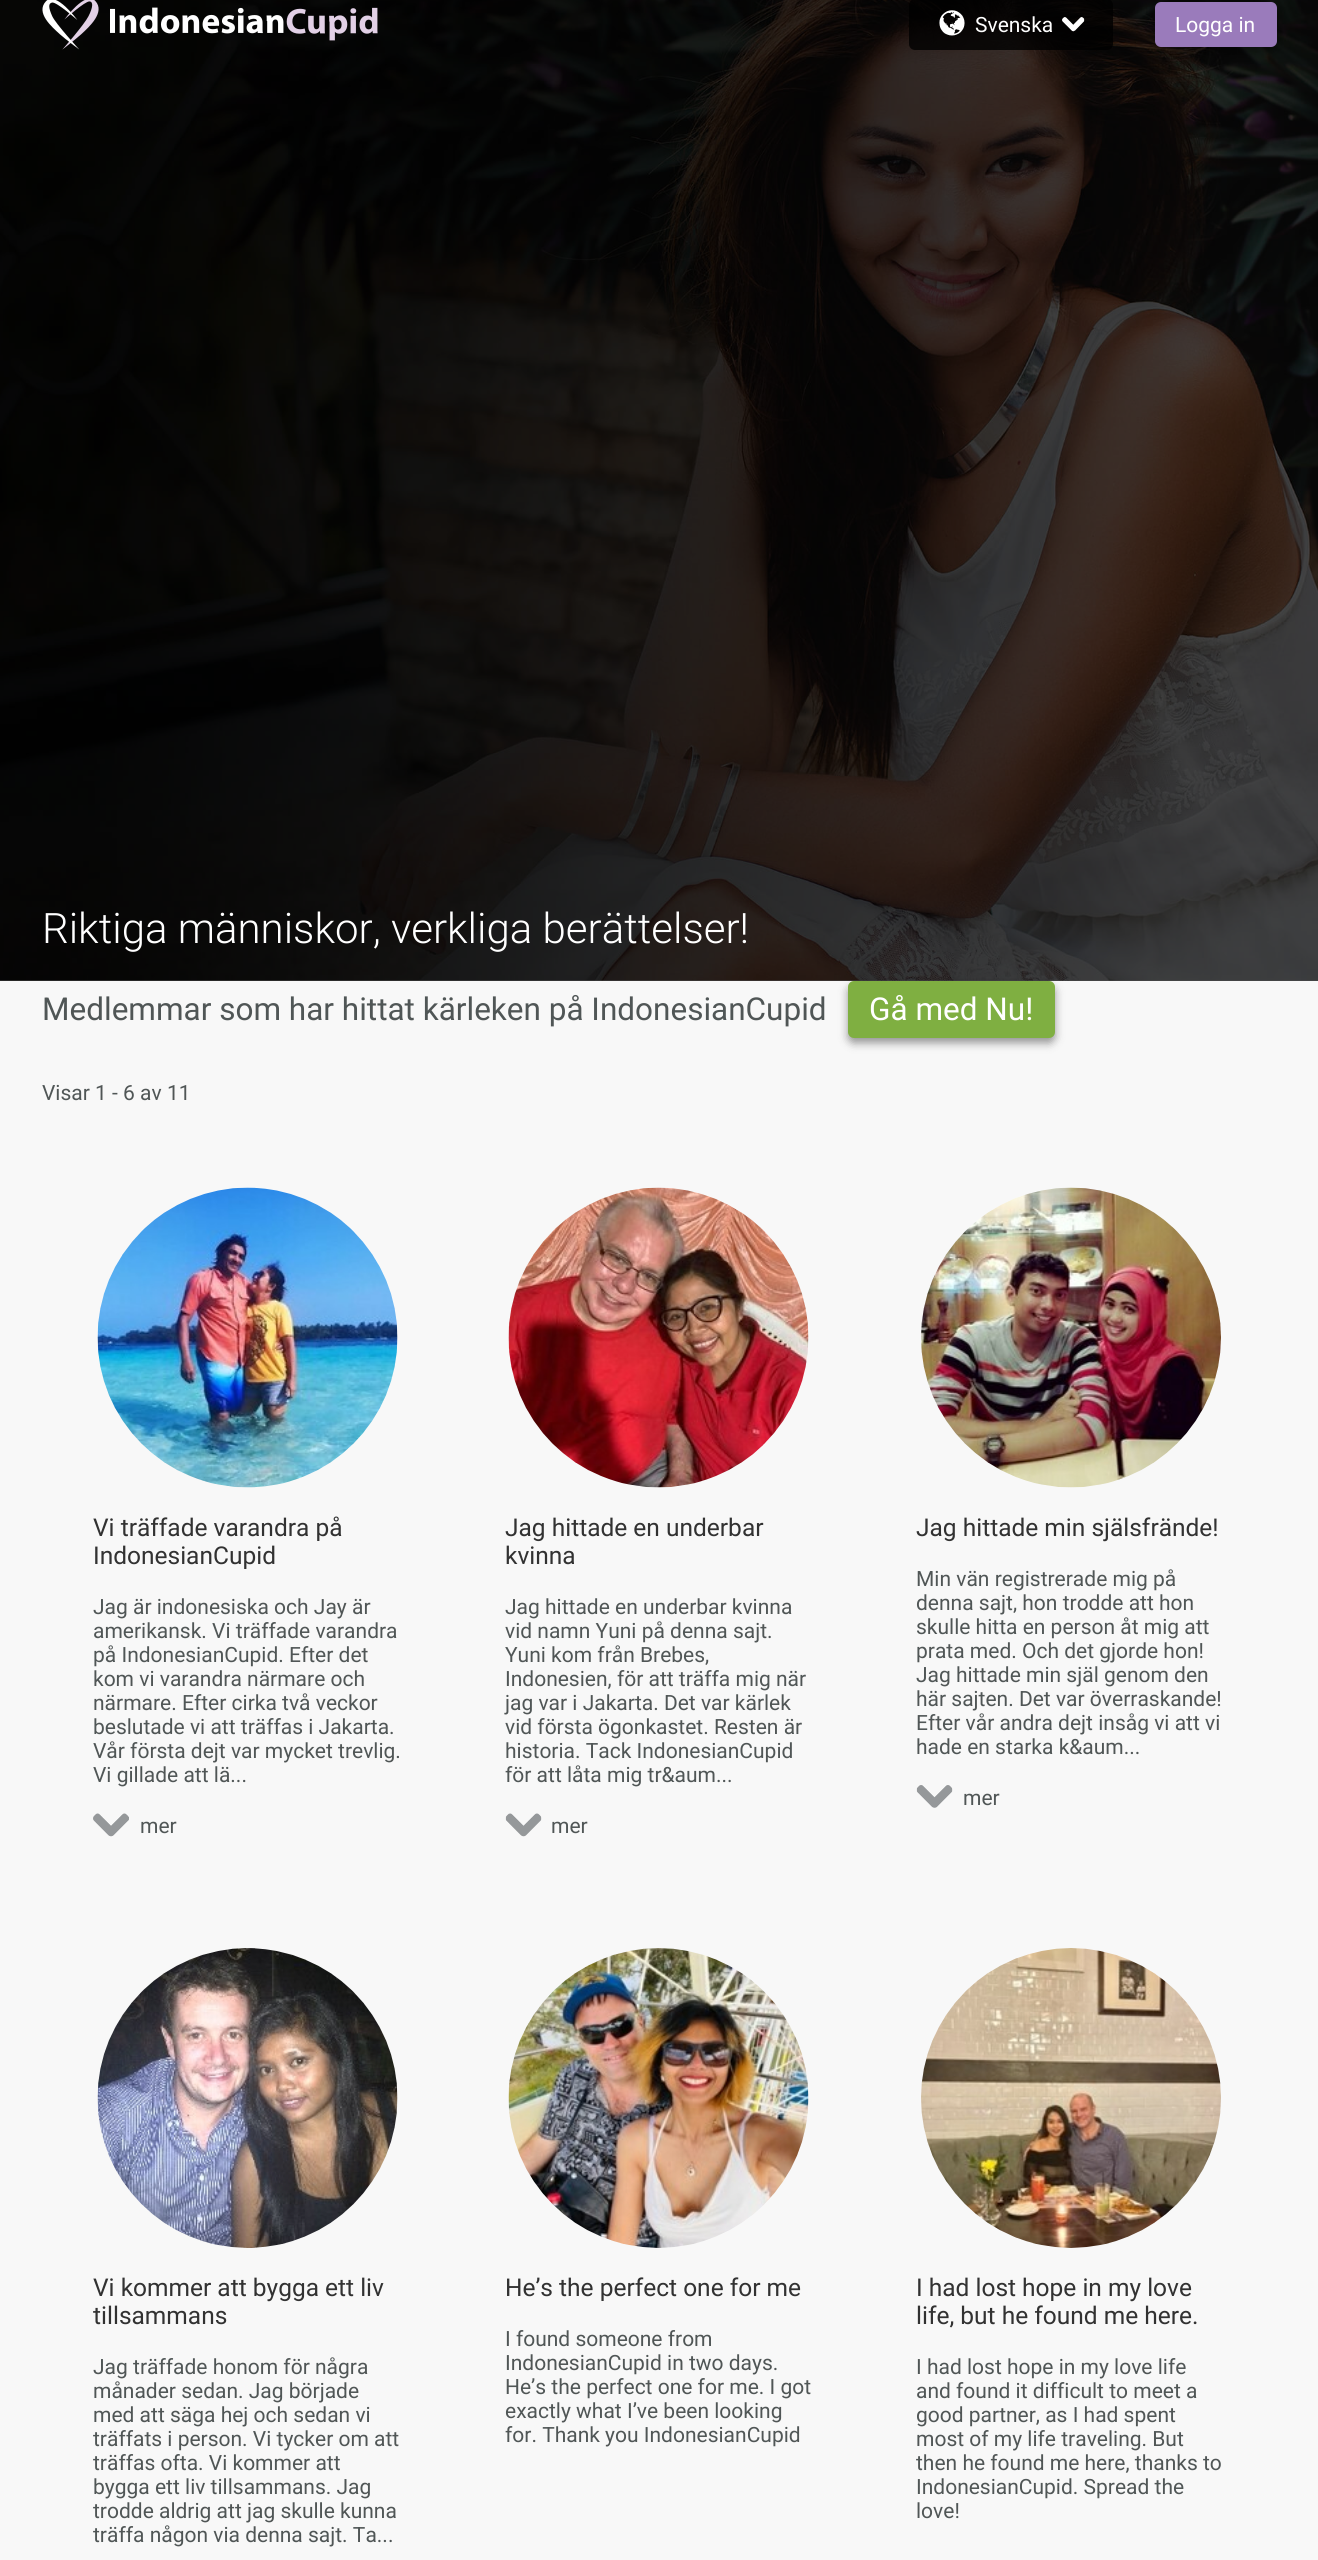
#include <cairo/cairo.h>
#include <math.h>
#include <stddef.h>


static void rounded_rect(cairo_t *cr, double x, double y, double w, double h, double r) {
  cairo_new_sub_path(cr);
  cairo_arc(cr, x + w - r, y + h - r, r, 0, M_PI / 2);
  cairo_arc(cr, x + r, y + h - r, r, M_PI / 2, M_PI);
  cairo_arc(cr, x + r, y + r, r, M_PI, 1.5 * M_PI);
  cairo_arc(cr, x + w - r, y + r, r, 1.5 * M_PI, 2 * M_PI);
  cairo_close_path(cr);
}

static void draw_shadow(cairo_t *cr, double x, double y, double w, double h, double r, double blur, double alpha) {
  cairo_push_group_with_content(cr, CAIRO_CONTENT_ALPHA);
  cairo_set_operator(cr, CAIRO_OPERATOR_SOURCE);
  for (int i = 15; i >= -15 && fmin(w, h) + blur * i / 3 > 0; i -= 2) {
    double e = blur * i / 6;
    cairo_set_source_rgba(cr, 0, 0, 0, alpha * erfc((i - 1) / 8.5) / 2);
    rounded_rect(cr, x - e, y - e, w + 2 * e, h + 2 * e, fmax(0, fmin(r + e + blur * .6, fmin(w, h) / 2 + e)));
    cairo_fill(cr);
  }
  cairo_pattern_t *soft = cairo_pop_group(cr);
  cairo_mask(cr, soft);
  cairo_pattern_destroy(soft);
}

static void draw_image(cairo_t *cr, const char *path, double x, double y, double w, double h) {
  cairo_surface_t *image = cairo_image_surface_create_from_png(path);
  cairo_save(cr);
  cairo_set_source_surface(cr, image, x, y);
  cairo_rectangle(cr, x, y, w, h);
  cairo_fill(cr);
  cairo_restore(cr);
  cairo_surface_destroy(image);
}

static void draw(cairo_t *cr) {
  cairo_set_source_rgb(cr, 248 / 255.0, 248 / 255.0, 248 / 255.0);
  cairo_paint(cr);
  cairo_set_source_rgb(cr, 74 / 255.0, 74 / 255.0, 74 / 255.0);
  cairo_rectangle(cr, 0, 980, 1318, 1);
  cairo_fill(cr);
  draw_image(cr, "images/1.png", 0, 0, 1318, 981);
  draw_image(cr, "images/2.png", 42, 0, 57, 50);
  draw_image(cr, "images/3.png", 110, 7, 268, 34);
  cairo_set_source_rgba(cr, 0, 0, 0, 0.8);
  rounded_rect(cr, 909, -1, 204, 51, 6);
  cairo_fill(cr);
  draw_image(cr, "images/4.png", 939, 10, 26, 26);
  draw_image(cr, "images/5.png", 1062, 17, 23, 15);
  cairo_set_source_rgb(cr, 0, 0, 0);
  draw_shadow(cr, 1155, 6, 122, 45, 6, 4.5, 0.4);
  cairo_set_source_rgb(cr, 154 / 255.0, 123 / 255.0, 187 / 255.0);
  rounded_rect(cr, 1155, 2, 122, 45, 6);
  cairo_fill(cr);
  cairo_set_source_rgb(cr, 0, 0, 0);
  draw_shadow(cr, 848, 986, 207, 57, 6, 4.5, 0.4);
  cairo_set_source_rgb(cr, 127 / 255.0, 175 / 255.0, 65 / 255.0);
  rounded_rect(cr, 848, 981, 207, 57, 6);
  cairo_fill(cr);
  draw_image(cr, "images/6.png", 97, 1187, 301, 301);
  draw_image(cr, "images/7.png", 93, 1813, 36, 24);
  draw_image(cr, "images/8.png", 508, 1187, 301, 301);
  draw_image(cr, "images/9.png", 505, 1813, 37, 24);
  draw_image(cr, "images/10.png", 921, 1187, 300, 301);
  draw_image(cr, "images/11.png", 916, 1785, 37, 23);
  draw_image(cr, "images/12.png", 97, 1948, 301, 300);
  draw_image(cr, "images/13.png", 508, 1948, 301, 300);
  draw_image(cr, "images/14.png", 921, 1948, 300, 300);
  cairo_select_font_face(cr, "Roboto", CAIRO_FONT_SLANT_NORMAL, CAIRO_FONT_WEIGHT_NORMAL);
  cairo_set_font_size(cr, 21);
  cairo_set_source_rgb(cr, 1, 1, 1);
  cairo_move_to(cr, 975, 32);
  cairo_show_text(cr, "Svenska");
  cairo_move_to(cr, 1175, 32);
  cairo_show_text(cr, "Logga in");
  cairo_select_font_face(cr, "Roboto Light", CAIRO_FONT_SLANT_NORMAL, CAIRO_FONT_WEIGHT_NORMAL);
  cairo_set_font_size(cr, 42);
  cairo_move_to(cr, 42, 943);
  cairo_show_text(cr, "Riktiga människor, verkliga berättelser!");
  cairo_select_font_face(cr, "Roboto", CAIRO_FONT_SLANT_NORMAL, CAIRO_FONT_WEIGHT_NORMAL);
  cairo_set_font_size(cr, 31.5);
  cairo_set_source_rgb(cr, 80 / 255.0, 86 / 255.0, 86 / 255.0);
  cairo_move_to(cr, 42, 1020);
  cairo_show_text(cr, "Medlemmar som har hittat kärleken på IndonesianCupid");
  cairo_set_source_rgb(cr, 1, 1, 1);
  cairo_move_to(cr, 869, 1020);
  cairo_show_text(cr, "Gå med Nu!");
  cairo_set_font_size(cr, 21);
  cairo_set_source_rgb(cr, 80 / 255.0, 86 / 255.0, 86 / 255.0);
  cairo_move_to(cr, 42, 1100);
  cairo_show_text(cr, "Visar 1 - 6 av 11");
  cairo_set_font_size(cr, 24.5);
  cairo_set_source_rgb(cr, 50 / 255.0, 50 / 255.0, 50 / 255.0);
  cairo_move_to(cr, 93, 1536);
  cairo_show_text(cr, "Vi träffade varandra på");
  cairo_move_to(cr, 93, 1564);
  cairo_show_text(cr, "IndonesianCupid");
  cairo_set_font_size(cr, 21);
  cairo_set_source_rgb(cr, 80 / 255.0, 86 / 255.0, 86 / 255.0);
  cairo_move_to(cr, 93, 1614);
  cairo_show_text(cr, "Jag är indonesiska och Jay är");
  cairo_move_to(cr, 93, 1638);
  cairo_show_text(cr, "amerikansk. Vi träffade varandra");
  cairo_move_to(cr, 93, 1662);
  cairo_show_text(cr, "på IndonesianCupid. Efter det");
  cairo_move_to(cr, 93, 1686);
  cairo_show_text(cr, "kom vi varandra närmare och");
  cairo_move_to(cr, 93, 1710);
  cairo_show_text(cr, "närmare. Efter cirka två veckor");
  cairo_move_to(cr, 93, 1734);
  cairo_show_text(cr, "beslutade vi att träffas i Jakarta.");
  cairo_move_to(cr, 93, 1758);
  cairo_show_text(cr, "Vår första dejt var mycket trevlig.");
  cairo_move_to(cr, 93, 1782);
  cairo_show_text(cr, "Vi gillade att lä...");
  cairo_move_to(cr, 140, 1833);
  cairo_show_text(cr, "mer");
  cairo_set_font_size(cr, 24.5);
  cairo_set_source_rgb(cr, 50 / 255.0, 50 / 255.0, 50 / 255.0);
  cairo_move_to(cr, 505, 1536);
  cairo_show_text(cr, "Jag hittade en underbar");
  cairo_move_to(cr, 505, 1564);
  cairo_show_text(cr, "kvinna");
  cairo_set_font_size(cr, 21);
  cairo_set_source_rgb(cr, 80 / 255.0, 86 / 255.0, 86 / 255.0);
  cairo_move_to(cr, 505, 1614);
  cairo_show_text(cr, "Jag hittade en underbar kvinna");
  cairo_move_to(cr, 505, 1638);
  cairo_show_text(cr, "vid namn Yuni på denna sajt.");
  cairo_move_to(cr, 505, 1662);
  cairo_show_text(cr, "Yuni kom från Brebes,");
  cairo_move_to(cr, 505, 1686);
  cairo_show_text(cr, "Indonesien, för att träffa mig när");
  cairo_move_to(cr, 505, 1710);
  cairo_show_text(cr, "jag var i Jakarta. Det var kärlek");
  cairo_move_to(cr, 505, 1734);
  cairo_show_text(cr, "vid första ögonkastet. Resten är");
  cairo_move_to(cr, 505, 1758);
  cairo_show_text(cr, "historia. Tack IndonesianCupid");
  cairo_move_to(cr, 505, 1782);
  cairo_show_text(cr, "för att låta mig tr&aum...");
  cairo_move_to(cr, 551, 1833);
  cairo_show_text(cr, "mer");
  cairo_set_font_size(cr, 24.5);
  cairo_set_source_rgb(cr, 50 / 255.0, 50 / 255.0, 50 / 255.0);
  cairo_move_to(cr, 916, 1536);
  cairo_show_text(cr, "Jag hittade min själsfrände!");
  cairo_set_font_size(cr, 21);
  cairo_set_source_rgb(cr, 80 / 255.0, 86 / 255.0, 86 / 255.0);
  cairo_move_to(cr, 916, 1586);
  cairo_show_text(cr, "Min vän registrerade mig på");
  cairo_move_to(cr, 916, 1610);
  cairo_show_text(cr, "denna sajt, hon trodde att hon");
  cairo_move_to(cr, 916, 1634);
  cairo_show_text(cr, "skulle hitta en person åt mig att");
  cairo_move_to(cr, 916, 1658);
  cairo_show_text(cr, "prata med. Och det gjorde hon!");
  cairo_move_to(cr, 916, 1682);
  cairo_show_text(cr, "Jag hittade min själ genom den");
  cairo_move_to(cr, 916, 1706);
  cairo_show_text(cr, "här sajten. Det var överraskande!");
  cairo_move_to(cr, 916, 1730);
  cairo_show_text(cr, "Efter vår andra dejt insåg vi att vi");
  cairo_move_to(cr, 916, 1754);
  cairo_show_text(cr, "hade en starka k&aum...");
  cairo_move_to(cr, 963, 1805);
  cairo_show_text(cr, "mer");
  cairo_set_font_size(cr, 24.5);
  cairo_set_source_rgb(cr, 50 / 255.0, 50 / 255.0, 50 / 255.0);
  cairo_move_to(cr, 93, 2296);
  cairo_show_text(cr, "Vi kommer att bygga ett liv");
  cairo_move_to(cr, 93, 2324);
  cairo_show_text(cr, "tillsammans");
  cairo_set_font_size(cr, 21);
  cairo_set_source_rgb(cr, 80 / 255.0, 86 / 255.0, 86 / 255.0);
  cairo_move_to(cr, 93, 2374);
  cairo_show_text(cr, "Jag träffade honom för några");
  cairo_move_to(cr, 93, 2398);
  cairo_show_text(cr, "månader sedan. Jag började");
  cairo_move_to(cr, 93, 2422);
  cairo_show_text(cr, "med att säga hej och sedan vi");
  cairo_move_to(cr, 93, 2446);
  cairo_show_text(cr, "träffats i person. Vi tycker om att");
  cairo_move_to(cr, 93, 2470);
  cairo_show_text(cr, "träffas ofta. Vi kommer att");
  cairo_move_to(cr, 93, 2494);
  cairo_show_text(cr, "bygga ett liv tillsammans. Jag");
  cairo_move_to(cr, 93, 2518);
  cairo_show_text(cr, "trodde aldrig att jag skulle kunna");
  cairo_move_to(cr, 93, 2542);
  cairo_show_text(cr, "träffa någon via denna sajt. Ta...");
  cairo_set_font_size(cr, 24.5);
  cairo_set_source_rgb(cr, 50 / 255.0, 50 / 255.0, 50 / 255.0);
  cairo_move_to(cr, 505, 2296);
  cairo_show_text(cr, "He’s the perfect one for me");
  cairo_set_font_size(cr, 21);
  cairo_set_source_rgb(cr, 80 / 255.0, 86 / 255.0, 86 / 255.0);
  cairo_move_to(cr, 505, 2346);
  cairo_show_text(cr, "I found someone from");
  cairo_move_to(cr, 505, 2370);
  cairo_show_text(cr, "IndonesianCupid in two days.");
  cairo_move_to(cr, 505, 2394);
  cairo_show_text(cr, "He’s the perfect one for me. I got");
  cairo_move_to(cr, 505, 2418);
  cairo_show_text(cr, "exactly what I’ve been looking");
  cairo_move_to(cr, 505, 2442);
  cairo_show_text(cr, "for. Thank you IndonesianCupid");
  cairo_set_font_size(cr, 24.5);
  cairo_set_source_rgb(cr, 50 / 255.0, 50 / 255.0, 50 / 255.0);
  cairo_move_to(cr, 916, 2296);
  cairo_show_text(cr, "I had lost hope in my love");
  cairo_move_to(cr, 916, 2324);
  cairo_show_text(cr, "life, but he found me here.");
  cairo_set_font_size(cr, 21);
  cairo_set_source_rgb(cr, 80 / 255.0, 86 / 255.0, 86 / 255.0);
  cairo_move_to(cr, 916, 2374);
  cairo_show_text(cr, "I had lost hope in my love life");
  cairo_move_to(cr, 916, 2398);
  cairo_show_text(cr, "and found it difficult to meet a");
  cairo_move_to(cr, 916, 2422);
  cairo_show_text(cr, "good partner, as I had spent");
  cairo_move_to(cr, 916, 2446);
  cairo_show_text(cr, "most of my life traveling. But");
  cairo_move_to(cr, 916, 2470);
  cairo_show_text(cr, "then he found me here, thanks to");
  cairo_move_to(cr, 916, 2494);
  cairo_show_text(cr, "IndonesianCupid. Spread the");
  cairo_move_to(cr, 916, 2518);
  cairo_show_text(cr, "love!");
}

int main(void) {
  cairo_surface_t *surface = cairo_image_surface_create(CAIRO_FORMAT_RGB24, 1318, 2560);
  cairo_t *cr = cairo_create(surface);
  cairo_font_options_t *options = cairo_font_options_create();
  cairo_font_options_set_hint_metrics(options, CAIRO_HINT_METRICS_OFF);
  cairo_font_options_set_hint_style(options, CAIRO_HINT_STYLE_NONE);
  cairo_set_font_options(cr, options);
  cairo_set_miter_limit(cr, 4);
  draw(cr);
  cairo_surface_write_to_png(surface, "out.png");
  cairo_font_options_destroy(options);
  cairo_destroy(cr);
  cairo_surface_destroy(surface);
  return 0;
}
